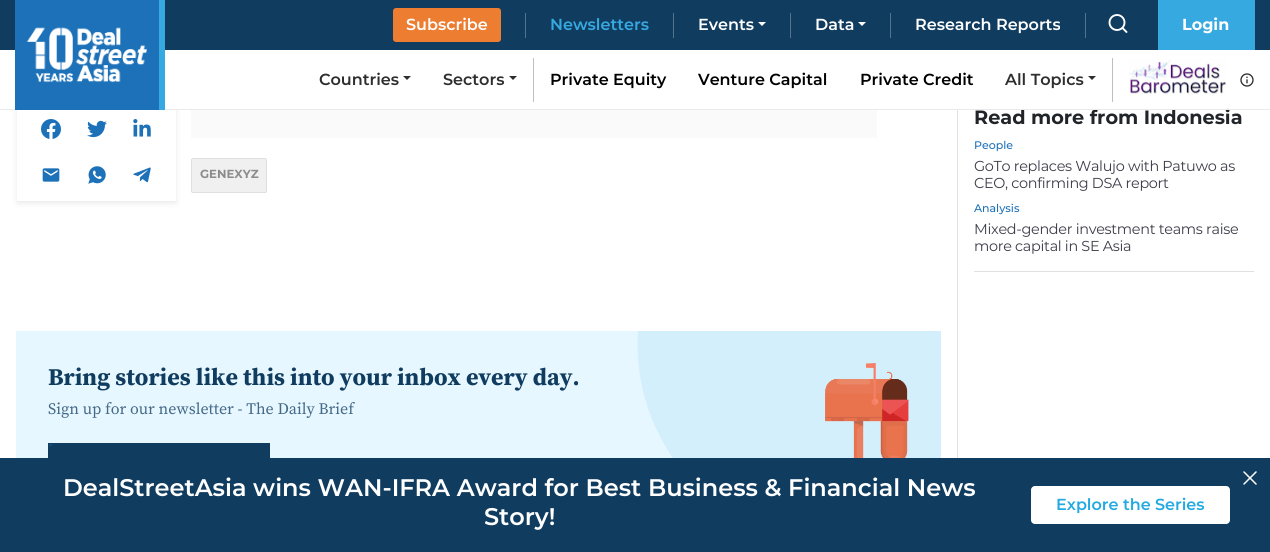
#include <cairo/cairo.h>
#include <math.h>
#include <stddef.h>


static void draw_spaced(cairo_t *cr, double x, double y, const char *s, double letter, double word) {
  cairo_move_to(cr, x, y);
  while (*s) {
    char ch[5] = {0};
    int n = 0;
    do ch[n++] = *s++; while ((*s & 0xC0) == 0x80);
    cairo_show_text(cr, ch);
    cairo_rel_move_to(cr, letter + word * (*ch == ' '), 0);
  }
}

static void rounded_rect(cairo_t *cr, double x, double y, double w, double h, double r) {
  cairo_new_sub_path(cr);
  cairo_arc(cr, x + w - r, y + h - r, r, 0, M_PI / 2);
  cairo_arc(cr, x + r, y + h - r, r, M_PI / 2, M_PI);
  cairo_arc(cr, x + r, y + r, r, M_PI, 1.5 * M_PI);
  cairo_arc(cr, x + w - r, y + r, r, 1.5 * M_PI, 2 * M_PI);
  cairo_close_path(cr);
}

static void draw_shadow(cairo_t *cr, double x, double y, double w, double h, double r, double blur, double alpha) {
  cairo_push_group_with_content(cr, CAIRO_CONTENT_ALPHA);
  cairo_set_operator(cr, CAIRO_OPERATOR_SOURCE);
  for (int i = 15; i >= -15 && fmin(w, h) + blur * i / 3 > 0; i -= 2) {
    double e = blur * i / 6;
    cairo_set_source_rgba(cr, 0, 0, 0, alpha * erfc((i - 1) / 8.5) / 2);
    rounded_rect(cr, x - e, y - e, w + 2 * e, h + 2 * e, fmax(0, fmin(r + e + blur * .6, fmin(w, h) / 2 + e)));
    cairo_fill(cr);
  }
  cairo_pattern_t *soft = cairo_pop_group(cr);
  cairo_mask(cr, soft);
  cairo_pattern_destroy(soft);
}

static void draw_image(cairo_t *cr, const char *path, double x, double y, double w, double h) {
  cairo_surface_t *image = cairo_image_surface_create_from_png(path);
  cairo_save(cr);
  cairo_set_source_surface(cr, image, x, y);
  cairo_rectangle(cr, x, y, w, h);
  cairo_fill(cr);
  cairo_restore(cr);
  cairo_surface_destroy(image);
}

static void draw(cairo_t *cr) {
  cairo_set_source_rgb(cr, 1, 1, 1);
  cairo_paint(cr);
  cairo_save(cr);
  cairo_set_fill_rule(cr, CAIRO_FILL_RULE_EVEN_ODD);
  cairo_new_path(cr);
  cairo_move_to(cr, 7, 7);
  cairo_line_to(cr, 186, 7);
  cairo_line_to(cr, 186, 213);
  cairo_line_to(cr, 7, 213);
  cairo_close_path(cr);
  cairo_move_to(cr, 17, 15);
  cairo_line_to(cr, 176, 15);
  cairo_line_to(cr, 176, 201);
  cairo_line_to(cr, 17, 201);
  cairo_close_path(cr);
  cairo_clip(cr);
  cairo_set_source_rgb(cr, 0, 0, 0);
  draw_shadow(cr, 17, 17, 159, 186, 0, 3, 0.09);
  cairo_restore(cr);
  cairo_set_source_rgb(cr, 16 / 255.0, 60 / 255.0, 96 / 255.0);
  cairo_rectangle(cr, 0, 0, 1270, 50);
  cairo_fill(cr);
  cairo_set_source_rgb(cr, 236 / 255.0, 125 / 255.0, 49 / 255.0);
  rounded_rect(cr, 393, 8, 108, 34, 3);
  cairo_fill(cr);
  cairo_set_source_rgb(cr, 84 / 255.0, 116 / 255.0, 141 / 255.0);
  cairo_rectangle(cr, 525, 13, 1, 25);
  cairo_fill(cr);
  cairo_rectangle(cr, 673, 13, 1, 25);
  cairo_fill(cr);
  cairo_set_source_rgb(cr, 1, 1, 1);
  cairo_new_path(cr);
  cairo_move_to(cr, 758, 22);
  cairo_line_to(cr, 766, 22);
  cairo_line_to(cr, 762, 26);
  cairo_close_path(cr);
  cairo_fill(cr);
  cairo_set_source_rgb(cr, 84 / 255.0, 116 / 255.0, 141 / 255.0);
  cairo_rectangle(cr, 790, 13, 1, 25);
  cairo_fill(cr);
  cairo_set_source_rgb(cr, 1, 1, 1);
  cairo_new_path(cr);
  cairo_move_to(cr, 858, 22);
  cairo_line_to(cr, 866, 22);
  cairo_line_to(cr, 862, 26);
  cairo_close_path(cr);
  cairo_fill(cr);
  cairo_set_source_rgb(cr, 84 / 255.0, 116 / 255.0, 141 / 255.0);
  cairo_rectangle(cr, 890, 13, 1, 25);
  cairo_fill(cr);
  cairo_rectangle(cr, 1085, 13, 1, 25);
  cairo_fill(cr);
  cairo_arc(cr, 1117, 22.5, 7.5, 0, 2 * M_PI);
  cairo_set_source_rgb(cr, 1, 1, 1);
  cairo_set_line_width(cr, 1.9);
  cairo_stroke(cr);
  cairo_new_path(cr);
  cairo_move_to(cr, 1126.5, 32);
  cairo_line_to(cr, 1122.5, 28);
  cairo_set_line_cap(cr, CAIRO_LINE_CAP_ROUND);
  cairo_set_line_join(cr, CAIRO_LINE_JOIN_ROUND);
  cairo_stroke(cr);
  cairo_set_source_rgb(cr, 54 / 255.0, 169 / 255.0, 225 / 255.0);
  cairo_rectangle(cr, 1158, 0, 97, 50);
  cairo_fill(cr);
  draw_image(cr, "images/3.png", 1240, 73, 14, 14);
  draw_image(cr, "images/4.png", 41, 119, 20, 20);
  draw_image(cr, "images/5.png", 87, 120, 20, 18);
  draw_image(cr, "images/6.png", 133, 119, 18, 18);
  draw_image(cr, "images/7.png", 42, 168, 18, 14);
  draw_image(cr, "images/8.png", 88, 166, 18, 18);
  draw_image(cr, "images/9.png", 133, 167, 18, 16);
  cairo_set_source_rgb(cr, 250 / 255.0, 250 / 255.0, 250 / 255.0);
  cairo_rectangle(cr, 191, 110, 686, 28);
  cairo_fill(cr);
  cairo_set_source_rgb(cr, 240 / 255.0, 240 / 255.0, 240 / 255.0);
  rounded_rect(cr, 191.5, 158.5, 75, 34, 1.5);
  cairo_fill_preserve(cr);
  cairo_set_source_rgb(cr, 223 / 255.0, 223 / 255.0, 223 / 255.0);
  cairo_set_line_width(cr, 1);
  cairo_set_line_cap(cr, CAIRO_LINE_CAP_BUTT);
  cairo_set_line_join(cr, CAIRO_LINE_JOIN_MITER);
  cairo_stroke(cr);
  cairo_set_source_rgb(cr, 231 / 255.0, 247 / 255.0, 1);
  cairo_rectangle(cr, 16, 331, 657, 127);
  cairo_fill(cr);
  cairo_set_source_rgb(cr, 211 / 255.0, 239 / 255.0, 252 / 255.0);
  cairo_new_path(cr);
  cairo_move_to(cr, 758, 529);
  cairo_curve_to(cr, 681, 495, 632, 415, 638, 331);
  cairo_line_to(cr, 941, 331);
  cairo_line_to(cr, 941, 518);
  cairo_curve_to(cr, 934, 522, 927, 526, 919, 529);
  cairo_close_path(cr);
  cairo_fill(cr);
  cairo_set_source_rgb(cr, 16 / 255.0, 60 / 255.0, 96 / 255.0);
  cairo_rectangle(cr, 48, 443, 222, 15);
  cairo_fill(cr);
  cairo_save(cr);
  cairo_rectangle(cr, 49, 444, 220, 40);
  cairo_clip(cr);
  cairo_set_source_rgb(cr, 21 / 255.0, 76 / 255.0, 121 / 255.0);
  cairo_new_path(cr);
  cairo_move_to(cr, 19, 422);
  cairo_line_to(cr, 19, 466);
  cairo_line_to(cr, 88, 422);
  cairo_close_path(cr);
  cairo_fill(cr);
  cairo_restore(cr);
  draw_image(cr, "images/10.png", 825, 363, 84, 95);
  cairo_set_source_rgb(cr, 222 / 255.0, 226 / 255.0, 230 / 255.0);
  cairo_rectangle(cr, 957, 110, 1, 348);
  cairo_fill(cr);
  cairo_set_source_rgb(cr, 223 / 255.0, 224 / 255.0, 225 / 255.0);
  cairo_rectangle(cr, 974, 271, 280, 1);
  cairo_fill(cr);
  cairo_set_source_rgb(cr, 16 / 255.0, 60 / 255.0, 96 / 255.0);
  cairo_rectangle(cr, 0, 458, 1270, 94);
  cairo_fill(cr);
  cairo_set_source_rgb(cr, 1, 1, 1);
  rounded_rect(cr, 1031, 486, 199, 38, 4);
  cairo_fill(cr);
  draw_image(cr, "images/11.png", 1243, 471, 14, 14);
  cairo_select_font_face(cr, "Montserrat SemiBold", CAIRO_FONT_SLANT_NORMAL, CAIRO_FONT_WEIGHT_NORMAL);
  cairo_set_font_size(cr, 16);
  cairo_move_to(cr, 406, 30);
  cairo_show_text(cr, "Subscribe");
  cairo_set_source_rgb(cr, 54 / 255.0, 169 / 255.0, 225 / 255.0);
  cairo_move_to(cr, 550, 30);
  cairo_show_text(cr, "Newsletters");
  cairo_set_source_rgb(cr, 1, 1, 1);
  cairo_move_to(cr, 698, 30);
  cairo_show_text(cr, "Events");
  cairo_move_to(cr, 815, 30);
  cairo_show_text(cr, "Data");
  cairo_move_to(cr, 915, 30);
  cairo_show_text(cr, "Research Reports");
  cairo_select_font_face(cr, "Montserrat", CAIRO_FONT_SLANT_NORMAL, CAIRO_FONT_WEIGHT_BOLD);
  cairo_move_to(cr, 1182, 30);
  cairo_show_text(cr, "Login");
  cairo_set_font_size(cr, 11.75);
  cairo_set_source_rgb(cr, 140 / 255.0, 140 / 255.0, 140 / 255.0);
  cairo_move_to(cr, 200, 178);
  cairo_show_text(cr, "GENEXYZ");
  cairo_select_font_face(cr, "Source Serif Pro", CAIRO_FONT_SLANT_NORMAL, CAIRO_FONT_WEIGHT_BOLD);
  cairo_set_font_size(cr, 24);
  cairo_set_source_rgb(cr, 16 / 255.0, 60 / 255.0, 96 / 255.0);
  cairo_move_to(cr, 48, 385);
  cairo_show_text(cr, "Bring stories like this into your inbox every day.");
  cairo_select_font_face(cr, "Source Serif Pro", CAIRO_FONT_SLANT_NORMAL, CAIRO_FONT_WEIGHT_NORMAL);
  cairo_set_font_size(cr, 16);
  cairo_set_source_rgb(cr, 68 / 255.0, 105 / 255.0, 135 / 255.0);
  cairo_move_to(cr, 48, 414);
  cairo_show_text(cr, "Sign up for our newsletter - The Daily Brief");
  cairo_select_font_face(cr, "Montserrat", CAIRO_FONT_SLANT_NORMAL, CAIRO_FONT_WEIGHT_BOLD);
  cairo_set_font_size(cr, 19.25);
  cairo_set_source_rgb(cr, 33 / 255.0, 37 / 255.0, 41 / 255.0);
  cairo_move_to(cr, 974, 124);
  cairo_show_text(cr, "Read more from Indonesia");
  cairo_set_source_rgb(cr, 234 / 255.0, 234 / 255.0, 234 / 255.0);
  cairo_rectangle(cr, 0, 109, 1270, 1);
  cairo_fill(cr);
  cairo_set_source_rgb(cr, 1, 1, 1);
  cairo_rectangle(cr, 13, 50, 1214, 59);
  cairo_fill(cr);
  cairo_set_source_rgb(cr, 29 / 255.0, 113 / 255.0, 184 / 255.0);
  cairo_rectangle(cr, 15, 0, 144, 110);
  cairo_fill(cr);
  draw_image(cr, "images/1.png", 26, 27, 121, 56);
  cairo_set_source_rgb(cr, 54 / 255.0, 169 / 255.0, 225 / 255.0);
  cairo_rectangle(cr, 159, 0, 6, 110);
  cairo_fill(cr);
  draw_image(cr, "images/2.png", 1129, 59, 97, 35);
  cairo_set_source_rgb(cr, 191 / 255.0, 191 / 255.0, 191 / 255.0);
  cairo_rectangle(cr, 1112, 58, 1, 44);
  cairo_fill(cr);
  cairo_set_source_rgb(cr, 46 / 255.0, 46 / 255.0, 46 / 255.0);
  cairo_new_path(cr);
  cairo_move_to(cr, 1088, 76);
  cairo_line_to(cr, 1096, 76);
  cairo_line_to(cr, 1092, 80);
  cairo_close_path(cr);
  cairo_fill(cr);
  cairo_select_font_face(cr, "Montserrat SemiBold", CAIRO_FONT_SLANT_NORMAL, CAIRO_FONT_WEIGHT_NORMAL);
  cairo_set_font_size(cr, 16);
  cairo_move_to(cr, 1005, 85);
  cairo_show_text(cr, "All Topics");
  cairo_set_source_rgb(cr, 191 / 255.0, 191 / 255.0, 191 / 255.0);
  cairo_rectangle(cr, 533, 58, 1, 44);
  cairo_fill(cr);
  cairo_set_source_rgb(cr, 46 / 255.0, 46 / 255.0, 46 / 255.0);
  cairo_new_path(cr);
  cairo_move_to(cr, 509, 76);
  cairo_line_to(cr, 517, 76);
  cairo_line_to(cr, 513, 80);
  cairo_close_path(cr);
  cairo_fill(cr);
  cairo_move_to(cr, 443, 85);
  cairo_show_text(cr, "Sectors");
  cairo_new_path(cr);
  cairo_move_to(cr, 403, 76);
  cairo_line_to(cr, 411, 76);
  cairo_line_to(cr, 407, 80);
  cairo_close_path(cr);
  cairo_fill(cr);
  cairo_move_to(cr, 319, 85);
  cairo_show_text(cr, "Countries");
  cairo_set_source_rgb(cr, 0, 0, 0);
  cairo_move_to(cr, 860, 85);
  cairo_show_text(cr, "Private Credit");
  cairo_move_to(cr, 698, 85);
  cairo_show_text(cr, "Venture Capital");
  cairo_move_to(cr, 550, 85);
  cairo_show_text(cr, "Private Equity");
  cairo_select_font_face(cr, "Montserrat Medium", CAIRO_FONT_SLANT_NORMAL, CAIRO_FONT_WEIGHT_NORMAL);
  cairo_set_font_size(cr, 11);
  cairo_set_source_rgb(cr, 29 / 255.0, 113 / 255.0, 184 / 255.0);
  cairo_move_to(cr, 974, 149);
  cairo_show_text(cr, "People");
  cairo_select_font_face(cr, "Montserrat", CAIRO_FONT_SLANT_NORMAL, CAIRO_FONT_WEIGHT_NORMAL);
  cairo_set_font_size(cr, 14.4);
  cairo_set_source_rgb(cr, 61 / 255.0, 61 / 255.0, 74 / 255.0);
  draw_spaced(cr, 974, 171, "GoTo replaces Walujo with Patuwo as", -0.3, 0);
  draw_spaced(cr, 974, 188, "CEO, confirming DSA report", -0.3, 0);
  cairo_select_font_face(cr, "Montserrat Medium", CAIRO_FONT_SLANT_NORMAL, CAIRO_FONT_WEIGHT_NORMAL);
  cairo_set_font_size(cr, 11);
  cairo_set_source_rgb(cr, 29 / 255.0, 113 / 255.0, 184 / 255.0);
  cairo_move_to(cr, 974, 212);
  cairo_show_text(cr, "Analysis");
  cairo_select_font_face(cr, "Montserrat", CAIRO_FONT_SLANT_NORMAL, CAIRO_FONT_WEIGHT_NORMAL);
  cairo_set_font_size(cr, 14.4);
  cairo_set_source_rgb(cr, 61 / 255.0, 61 / 255.0, 74 / 255.0);
  draw_spaced(cr, 974, 234, "Mixed-gender investment teams raise", -0.3, 0);
  draw_spaced(cr, 974, 251, "more capital in SE Asia", -0.3, 0);
  cairo_select_font_face(cr, "Montserrat SemiBold", CAIRO_FONT_SLANT_NORMAL, CAIRO_FONT_WEIGHT_NORMAL);
  cairo_set_font_size(cr, 24);
  cairo_set_source_rgb(cr, 1, 1, 1);
  cairo_move_to(cr, 63, 496);
  cairo_show_text(cr, "DealStreetAsia wins WAN-IFRA Award for Best Business & Financial News");
  cairo_move_to(cr, 484, 525);
  cairo_show_text(cr, "Story!");
  cairo_set_font_size(cr, 16);
  cairo_set_source_rgb(cr, 36 / 255.0, 170 / 255.0, 225 / 255.0);
  cairo_move_to(cr, 1056, 510);
  cairo_show_text(cr, "Explore the Series");
}

int main(void) {
  cairo_surface_t *surface = cairo_image_surface_create(CAIRO_FORMAT_RGB24, 1270, 552);
  cairo_t *cr = cairo_create(surface);
  cairo_font_options_t *options = cairo_font_options_create();
  cairo_font_options_set_hint_metrics(options, CAIRO_HINT_METRICS_OFF);
  cairo_font_options_set_hint_style(options, CAIRO_HINT_STYLE_NONE);
  cairo_set_font_options(cr, options);
  cairo_set_miter_limit(cr, 4);
  draw(cr);
  cairo_surface_write_to_png(surface, "out.png");
  cairo_font_options_destroy(options);
  cairo_destroy(cr);
  cairo_surface_destroy(surface);
  return 0;
}
